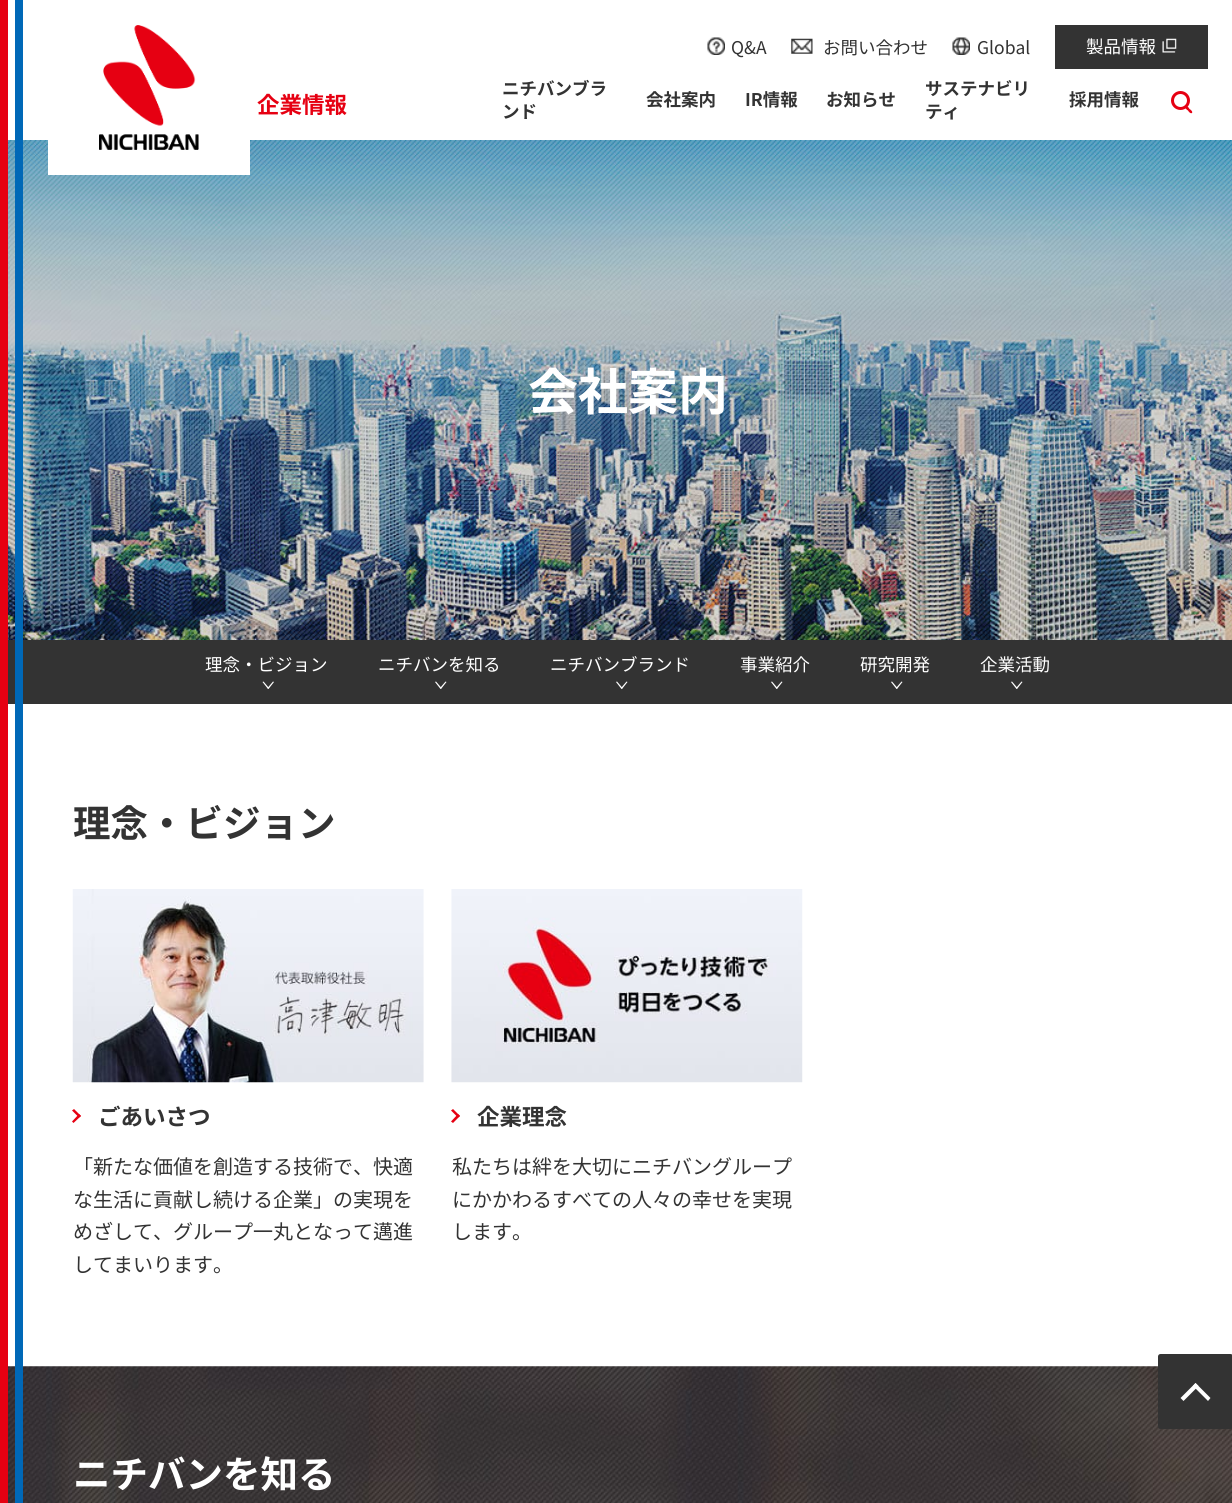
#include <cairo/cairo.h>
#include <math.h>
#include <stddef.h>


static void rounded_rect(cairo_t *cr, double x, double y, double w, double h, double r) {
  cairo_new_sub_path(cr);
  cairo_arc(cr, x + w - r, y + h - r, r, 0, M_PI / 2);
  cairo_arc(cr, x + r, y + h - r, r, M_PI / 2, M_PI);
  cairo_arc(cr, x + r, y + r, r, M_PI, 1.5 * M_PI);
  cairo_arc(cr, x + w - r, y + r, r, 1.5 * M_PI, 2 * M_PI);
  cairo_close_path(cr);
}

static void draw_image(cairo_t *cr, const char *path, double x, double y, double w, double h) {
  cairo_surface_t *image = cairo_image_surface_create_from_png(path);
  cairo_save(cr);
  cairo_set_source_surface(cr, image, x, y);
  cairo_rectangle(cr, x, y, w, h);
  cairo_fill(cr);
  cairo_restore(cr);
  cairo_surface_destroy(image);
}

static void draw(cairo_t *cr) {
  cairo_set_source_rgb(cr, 1, 1, 1);
  cairo_paint(cr);
  cairo_set_source_rgb(cr, 230 / 255.0, 0, 18 / 255.0);
  cairo_rectangle(cr, 0, 0, 8, 1503);
  cairo_fill(cr);
  draw_image(cr, "images/6.png", 8, 140, 1224, 500);
  cairo_set_source_rgb(cr, 51 / 255.0, 51 / 255.0, 51 / 255.0);
  cairo_rectangle(cr, 8, 640, 1224, 64);
  cairo_fill(cr);
  draw_image(cr, "images/9.png", 8, 1366, 1224, 137);
  cairo_set_source_rgb(cr, 0, 104 / 255.0, 183 / 255.0);
  cairo_rectangle(cr, 15, 0, 8, 1503);
  cairo_fill(cr);
  cairo_set_source_rgb(cr, 1, 1, 1);
  cairo_rectangle(cr, 48, 140, 202, 35);
  cairo_fill(cr);
  draw_image(cr, "images/1.png", 99, 25, 100, 125);
  draw_image(cr, "images/2.png", 707, 37, 18, 18);
  draw_image(cr, "images/3.png", 791, 38, 22, 16);
  draw_image(cr, "images/4.png", 952, 37, 18, 18);
  cairo_set_source_rgb(cr, 51 / 255.0, 51 / 255.0, 51 / 255.0);
  cairo_rectangle(cr, 1055, 25, 153, 44);
  cairo_fill(cr);
  draw_image(cr, "images/5.png", 1162, 38, 15, 15);
  cairo_arc(cr, 1180.5, 100.5, 8, 0, 2 * M_PI);
  cairo_set_source_rgb(cr, 230 / 255.0, 0, 18 / 255.0);
  cairo_set_line_width(cr, 3);
  cairo_stroke(cr);
  cairo_new_path(cr);
  cairo_move_to(cr, 1185.5, 106.5);
  cairo_curve_to(cr, 1187, 105, 1189, 108, 1189.5, 109);
  cairo_curve_to(cr, 1190.5, 109.5, 1193, 111.5, 1192, 113);
  cairo_curve_to(cr, 1190.5, 114, 1188.5, 111.5, 1188, 110.5);
  cairo_curve_to(cr, 1187, 110, 1184.5, 108, 1185.5, 106.5);
  cairo_close_path(cr);
  cairo_fill(cr);
  cairo_set_source_rgb(cr, 1, 1, 1);
  cairo_new_path(cr);
  cairo_move_to(cr, 263.5, 681.5);
  cairo_line_to(cr, 269, 688);
  cairo_line_to(cr, 268, 689);
  cairo_line_to(cr, 262.5, 682);
  cairo_close_path(cr);
  cairo_fill(cr);
  cairo_new_path(cr);
  cairo_move_to(cr, 274, 682);
  cairo_line_to(cr, 268.5, 689);
  cairo_line_to(cr, 267.5, 688);
  cairo_line_to(cr, 273, 681.5);
  cairo_close_path(cr);
  cairo_fill(cr);
  cairo_new_path(cr);
  cairo_move_to(cr, 436, 681.5);
  cairo_line_to(cr, 441.5, 688);
  cairo_line_to(cr, 440.5, 689);
  cairo_line_to(cr, 435, 682);
  cairo_close_path(cr);
  cairo_fill(cr);
  cairo_new_path(cr);
  cairo_move_to(cr, 446.5, 682);
  cairo_line_to(cr, 441, 689);
  cairo_line_to(cr, 440, 688);
  cairo_line_to(cr, 445.5, 681.5);
  cairo_close_path(cr);
  cairo_fill(cr);
  cairo_new_path(cr);
  cairo_move_to(cr, 617, 681.5);
  cairo_line_to(cr, 622.5, 688);
  cairo_line_to(cr, 621.5, 689);
  cairo_line_to(cr, 616, 682);
  cairo_close_path(cr);
  cairo_fill(cr);
  cairo_new_path(cr);
  cairo_move_to(cr, 627.5, 682);
  cairo_line_to(cr, 622, 689);
  cairo_line_to(cr, 621, 688);
  cairo_line_to(cr, 626.5, 681.5);
  cairo_close_path(cr);
  cairo_fill(cr);
  cairo_new_path(cr);
  cairo_move_to(cr, 772, 681.5);
  cairo_line_to(cr, 777.5, 688);
  cairo_line_to(cr, 776.5, 689);
  cairo_line_to(cr, 771, 682);
  cairo_close_path(cr);
  cairo_fill(cr);
  cairo_new_path(cr);
  cairo_move_to(cr, 782.5, 682);
  cairo_line_to(cr, 777, 689);
  cairo_line_to(cr, 776, 688);
  cairo_line_to(cr, 781.5, 681.5);
  cairo_close_path(cr);
  cairo_fill(cr);
  cairo_new_path(cr);
  cairo_move_to(cr, 892, 681.5);
  cairo_line_to(cr, 897.5, 688);
  cairo_line_to(cr, 896.5, 689);
  cairo_line_to(cr, 891, 682);
  cairo_close_path(cr);
  cairo_fill(cr);
  cairo_new_path(cr);
  cairo_move_to(cr, 902.5, 682);
  cairo_line_to(cr, 897, 689);
  cairo_line_to(cr, 896, 688);
  cairo_line_to(cr, 901.5, 681.5);
  cairo_close_path(cr);
  cairo_fill(cr);
  cairo_new_path(cr);
  cairo_move_to(cr, 1012, 681.5);
  cairo_line_to(cr, 1017.5, 688);
  cairo_line_to(cr, 1016.5, 689);
  cairo_line_to(cr, 1011, 682);
  cairo_close_path(cr);
  cairo_fill(cr);
  cairo_new_path(cr);
  cairo_move_to(cr, 1022.5, 682);
  cairo_line_to(cr, 1017, 689);
  cairo_line_to(cr, 1016, 688);
  cairo_line_to(cr, 1021.5, 681.5);
  cairo_close_path(cr);
  cairo_fill(cr);
  draw_image(cr, "images/7.png", 72, 889, 352, 194);
  cairo_set_source_rgb(cr, 230 / 255.0, 0, 18 / 255.0);
  cairo_new_path(cr);
  cairo_move_to(cr, 74, 1109);
  cairo_line_to(cr, 81, 1116);
  cairo_line_to(cr, 79, 1117.5);
  cairo_line_to(cr, 72, 1110.5);
  cairo_close_path(cr);
  cairo_fill(cr);
  cairo_new_path(cr);
  cairo_move_to(cr, 79, 1114);
  cairo_line_to(cr, 81, 1116);
  cairo_line_to(cr, 73.5, 1123);
  cairo_line_to(cr, 72, 1121.5);
  cairo_close_path(cr);
  cairo_fill(cr);
  draw_image(cr, "images/8.png", 451, 889, 352, 194);
  cairo_new_path(cr);
  cairo_move_to(cr, 453, 1109);
  cairo_line_to(cr, 460, 1116);
  cairo_line_to(cr, 458, 1117.5);
  cairo_line_to(cr, 451, 1110.5);
  cairo_close_path(cr);
  cairo_fill(cr);
  cairo_new_path(cr);
  cairo_move_to(cr, 458, 1114);
  cairo_line_to(cr, 460, 1116);
  cairo_line_to(cr, 453, 1123);
  cairo_line_to(cr, 451, 1121.5);
  cairo_close_path(cr);
  cairo_fill(cr);
  cairo_set_source_rgb(cr, 51 / 255.0, 51 / 255.0, 51 / 255.0);
  rounded_rect(cr, 1158, 1354, 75, 75, 2.5);
  cairo_fill(cr);
  cairo_set_source_rgb(cr, 1, 1, 1);
  cairo_new_path(cr);
  cairo_move_to(cr, 1180.5, 1398);
  cairo_line_to(cr, 1195.5, 1383);
  cairo_line_to(cr, 1198.5, 1386);
  cairo_line_to(cr, 1183.5, 1401);
  cairo_close_path(cr);
  cairo_fill(cr);
  cairo_new_path(cr);
  cairo_move_to(cr, 1193, 1386);
  cairo_line_to(cr, 1195.5, 1383);
  cairo_line_to(cr, 1210.5, 1398);
  cairo_line_to(cr, 1208, 1401);
  cairo_close_path(cr);
  cairo_fill(cr);
  cairo_select_font_face(cr, "Noto Sans JP", CAIRO_FONT_SLANT_NORMAL, CAIRO_FONT_WEIGHT_BOLD);
  cairo_set_font_size(cr, 22.5);
  cairo_set_source_rgb(cr, 230 / 255.0, 0, 18 / 255.0);
  cairo_move_to(cr, 257, 113);
  cairo_show_text(cr, "企業情報");
  cairo_select_font_face(cr, "Noto Sans JP", CAIRO_FONT_SLANT_NORMAL, CAIRO_FONT_WEIGHT_NORMAL);
  cairo_set_font_size(cr, 17.5);
  cairo_set_source_rgb(cr, 51 / 255.0, 51 / 255.0, 51 / 255.0);
  cairo_move_to(cr, 731, 54);
  cairo_show_text(cr, "Q&A");
  cairo_move_to(cr, 823, 54);
  cairo_show_text(cr, "お問い合わせ");
  cairo_move_to(cr, 977, 54);
  cairo_show_text(cr, "Global");
  cairo_set_source_rgb(cr, 1, 1, 1);
  cairo_move_to(cr, 1086, 53);
  cairo_show_text(cr, "製品情報");
  cairo_select_font_face(cr, "Noto Sans JP", CAIRO_FONT_SLANT_NORMAL, CAIRO_FONT_WEIGHT_BOLD);
  cairo_set_source_rgb(cr, 51 / 255.0, 51 / 255.0, 51 / 255.0);
  cairo_move_to(cr, 502, 95);
  cairo_show_text(cr, "ニチバンブラ");
  cairo_move_to(cr, 502, 118);
  cairo_show_text(cr, "ンド");
  cairo_move_to(cr, 646, 106);
  cairo_show_text(cr, "会社案内");
  cairo_move_to(cr, 745, 106);
  cairo_show_text(cr, "IR情報");
  cairo_move_to(cr, 826, 106);
  cairo_show_text(cr, "お知らせ");
  cairo_move_to(cr, 925, 95);
  cairo_show_text(cr, "サステナビリ");
  cairo_move_to(cr, 925, 118);
  cairo_show_text(cr, "ティ");
  cairo_move_to(cr, 1069, 106);
  cairo_show_text(cr, "採用情報");
  cairo_set_font_size(cr, 50);
  cairo_set_source_rgb(cr, 1, 1, 1);
  cairo_move_to(cr, 528, 410);
  cairo_show_text(cr, "会社案内");
  cairo_select_font_face(cr, "Noto Sans JP", CAIRO_FONT_SLANT_NORMAL, CAIRO_FONT_WEIGHT_NORMAL);
  cairo_set_font_size(cr, 17.5);
  cairo_move_to(cr, 205, 671);
  cairo_show_text(cr, "理念・ビジョン");
  cairo_move_to(cr, 378, 671);
  cairo_show_text(cr, "ニチバンを知る");
  cairo_move_to(cr, 550, 671);
  cairo_show_text(cr, "ニチバンブランド");
  cairo_move_to(cr, 740, 671);
  cairo_show_text(cr, "事業紹介");
  cairo_move_to(cr, 860, 671);
  cairo_show_text(cr, "研究開発");
  cairo_move_to(cr, 980, 671);
  cairo_show_text(cr, "企業活動");
  cairo_select_font_face(cr, "Noto Sans JP", CAIRO_FONT_SLANT_NORMAL, CAIRO_FONT_WEIGHT_BOLD);
  cairo_set_font_size(cr, 37.5);
  cairo_set_source_rgb(cr, 51 / 255.0, 51 / 255.0, 51 / 255.0);
  cairo_move_to(cr, 73, 837);
  cairo_show_text(cr, "理念・ビジョン");
  cairo_set_font_size(cr, 22.5);
  cairo_move_to(cr, 98, 1125);
  cairo_show_text(cr, "ごあいさつ");
  cairo_select_font_face(cr, "Noto Sans JP", CAIRO_FONT_SLANT_NORMAL, CAIRO_FONT_WEIGHT_NORMAL);
  cairo_set_font_size(cr, 20);
  cairo_move_to(cr, 73, 1174);
  cairo_show_text(cr, "「新たな価値を創造する技術で、快適");
  cairo_move_to(cr, 73, 1207);
  cairo_show_text(cr, "な生活に貢献し続ける企業」の実現を");
  cairo_move_to(cr, 73, 1239);
  cairo_show_text(cr, "めざして、グループ一丸となって邁進");
  cairo_move_to(cr, 73, 1272);
  cairo_show_text(cr, "してまいります。");
  cairo_select_font_face(cr, "Noto Sans JP", CAIRO_FONT_SLANT_NORMAL, CAIRO_FONT_WEIGHT_BOLD);
  cairo_set_font_size(cr, 22.5);
  cairo_move_to(cr, 477, 1125);
  cairo_show_text(cr, "企業理念");
  cairo_select_font_face(cr, "Noto Sans JP", CAIRO_FONT_SLANT_NORMAL, CAIRO_FONT_WEIGHT_NORMAL);
  cairo_set_font_size(cr, 20);
  cairo_move_to(cr, 452, 1174);
  cairo_show_text(cr, "私たちは絆を大切にニチバングループ");
  cairo_move_to(cr, 452, 1207);
  cairo_show_text(cr, "にかかわるすべての人々の幸せを実現");
  cairo_move_to(cr, 452, 1239);
  cairo_show_text(cr, "します。");
  cairo_select_font_face(cr, "Noto Sans JP", CAIRO_FONT_SLANT_NORMAL, CAIRO_FONT_WEIGHT_BOLD);
  cairo_set_font_size(cr, 37.5);
  cairo_set_source_rgb(cr, 1, 1, 1);
  cairo_move_to(cr, 73, 1488);
  cairo_show_text(cr, "ニチバンを知る");
}

int main(void) {
  cairo_surface_t *surface = cairo_image_surface_create(CAIRO_FORMAT_RGB24, 1232, 1503);
  cairo_t *cr = cairo_create(surface);
  cairo_font_options_t *options = cairo_font_options_create();
  cairo_font_options_set_hint_metrics(options, CAIRO_HINT_METRICS_OFF);
  cairo_font_options_set_hint_style(options, CAIRO_HINT_STYLE_NONE);
  cairo_set_font_options(cr, options);
  cairo_set_miter_limit(cr, 4);
  draw(cr);
  cairo_surface_write_to_png(surface, "out.png");
  cairo_font_options_destroy(options);
  cairo_destroy(cr);
  cairo_surface_destroy(surface);
  return 0;
}
